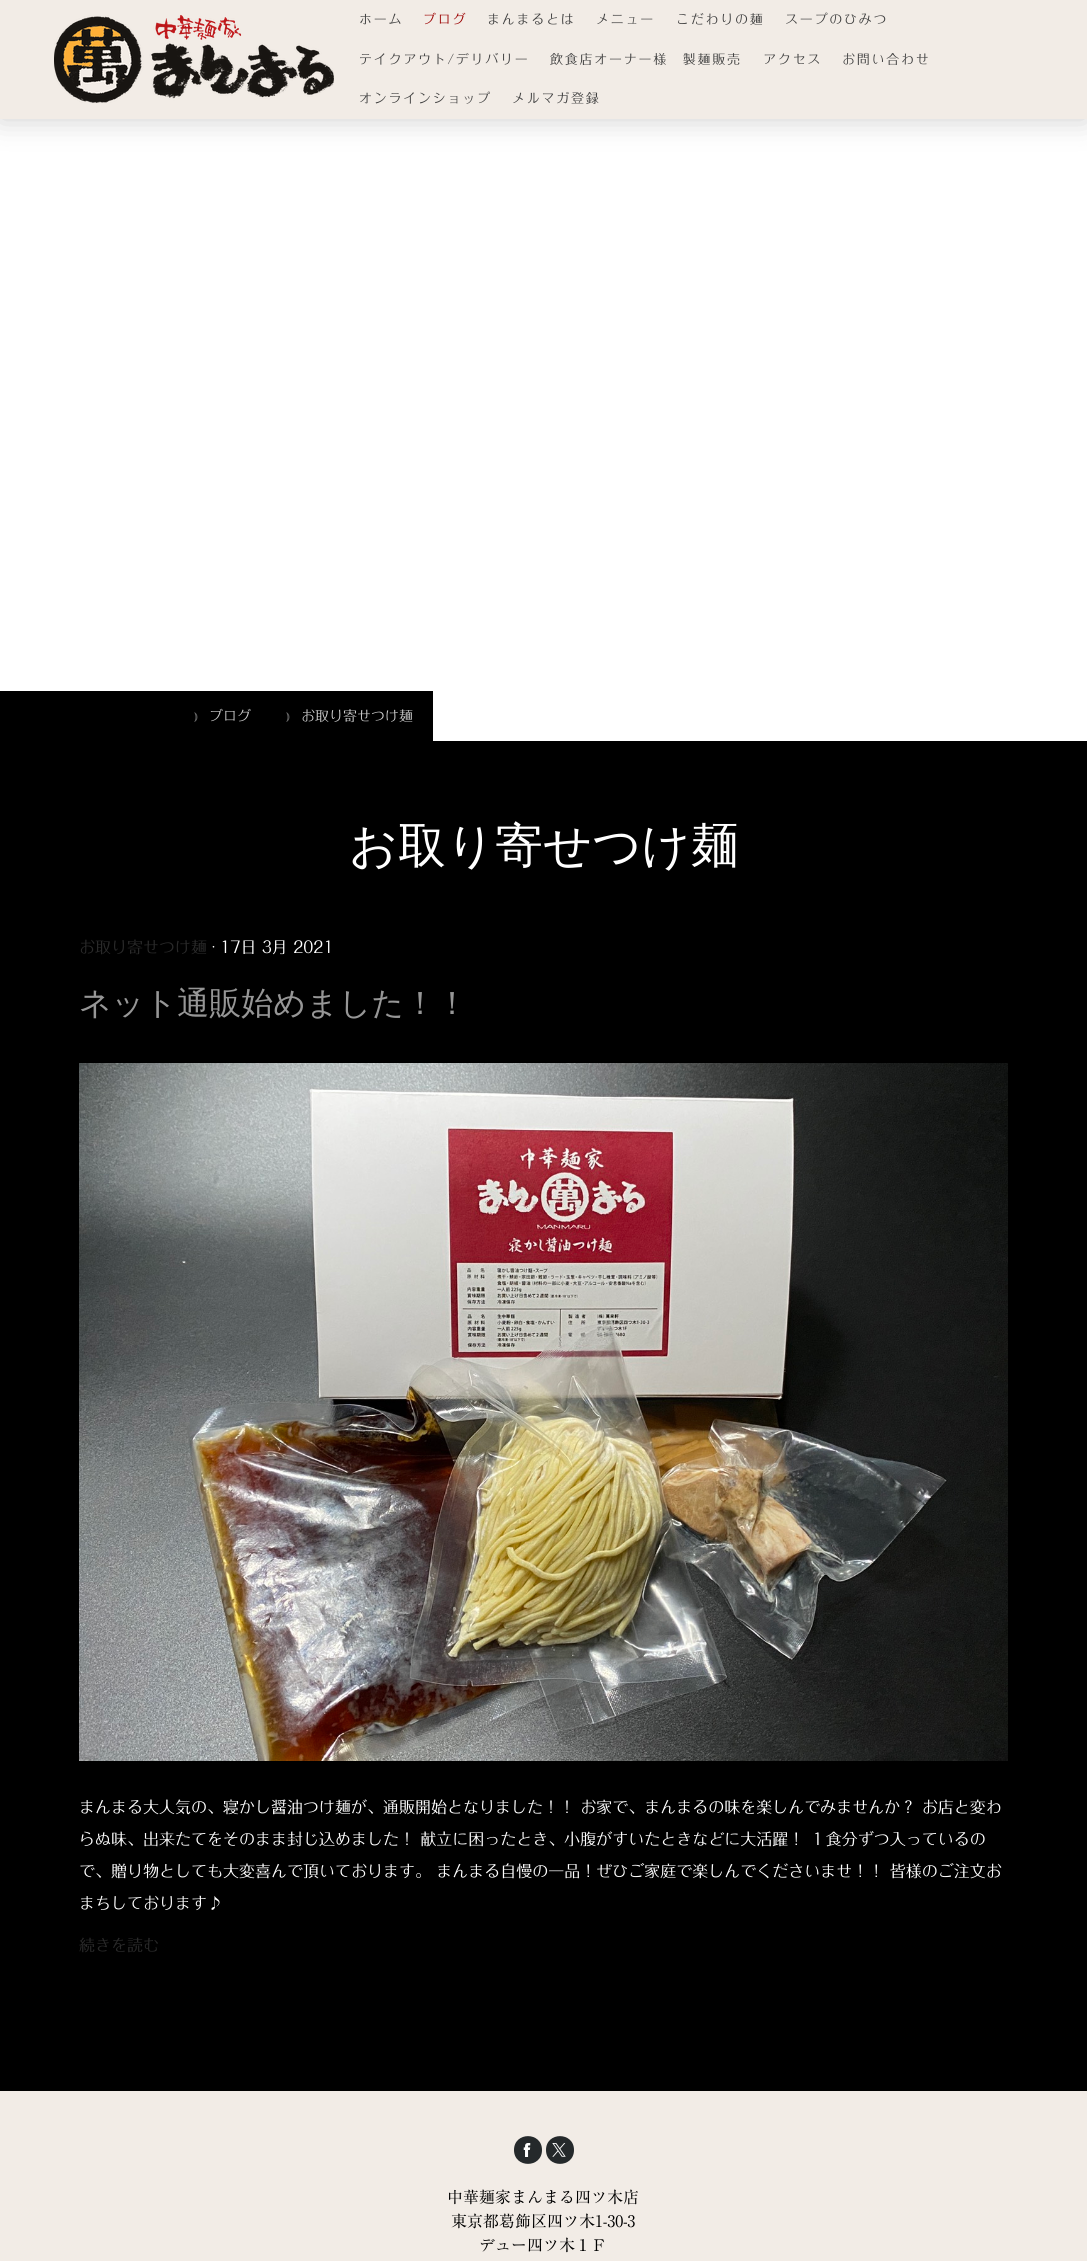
#include <cairo/cairo.h>
#include <math.h>
#include <stddef.h>


static void draw_spaced(cairo_t *cr, double x, double y, const char *s, double letter, double word) {
  cairo_move_to(cr, x, y);
  while (*s) {
    char ch[5] = {0};
    int n = 0;
    do ch[n++] = *s++; while ((*s & 0xC0) == 0x80);
    cairo_show_text(cr, ch);
    cairo_rel_move_to(cr, letter + word * (*ch == ' '), 0);
  }
}

static void rounded_rect(cairo_t *cr, double x, double y, double w, double h, double r) {
  cairo_new_sub_path(cr);
  cairo_arc(cr, x + w - r, y + h - r, r, 0, M_PI / 2);
  cairo_arc(cr, x + r, y + h - r, r, M_PI / 2, M_PI);
  cairo_arc(cr, x + r, y + r, r, M_PI, 1.5 * M_PI);
  cairo_arc(cr, x + w - r, y + r, r, 1.5 * M_PI, 2 * M_PI);
  cairo_close_path(cr);
}

static void draw_shadow(cairo_t *cr, double x, double y, double w, double h, double r, double blur, double alpha) {
  cairo_push_group_with_content(cr, CAIRO_CONTENT_ALPHA);
  cairo_set_operator(cr, CAIRO_OPERATOR_SOURCE);
  for (int i = 15; i >= -15 && fmin(w, h) + blur * i / 3 > 0; i -= 2) {
    double e = blur * i / 6;
    cairo_set_source_rgba(cr, 0, 0, 0, alpha * erfc((i - 1) / 8.5) / 2);
    rounded_rect(cr, x - e, y - e, w + 2 * e, h + 2 * e, fmax(0, fmin(r + e + blur * .6, fmin(w, h) / 2 + e)));
    cairo_fill(cr);
  }
  cairo_pattern_t *soft = cairo_pop_group(cr);
  cairo_mask(cr, soft);
  cairo_pattern_destroy(soft);
}

static void draw_image(cairo_t *cr, const char *path, double x, double y, double w, double h) {
  cairo_surface_t *image = cairo_image_surface_create_from_png(path);
  cairo_save(cr);
  cairo_set_source_surface(cr, image, x, y);
  cairo_rectangle(cr, x, y, w, h);
  cairo_fill(cr);
  cairo_restore(cr);
  cairo_surface_destroy(image);
}

static void draw(cairo_t *cr) {
  cairo_set_source_rgb(cr, 1, 1, 1);
  cairo_paint(cr);
  cairo_set_source_rgb(cr, 0, 0, 0);
  draw_shadow(cr, 0, 0, 1087, 119, 0, 15, 0.2);
  cairo_set_source_rgb(cr, 242 / 255.0, 236 / 255.0, 230 / 255.0);
  cairo_rectangle(cr, 0, 0, 1087, 119);
  cairo_fill(cr);
  draw_image(cr, "images/1.png", 54, 15, 280, 88);
  cairo_set_source_rgb(cr, 0, 0, 0);
  cairo_rectangle(cr, 0, 741, 1087, 1350);
  cairo_fill(cr);
  cairo_rectangle(cr, 0, 691, 433, 50);
  cairo_fill(cr);
  draw_image(cr, "images/2.png", 79, 1063, 929, 698);
  cairo_set_source_rgb(cr, 242 / 255.0, 236 / 255.0, 230 / 255.0);
  cairo_rectangle(cr, 0, 2091, 1087, 170);
  cairo_fill(cr);
  cairo_set_source_rgb(cr, 37 / 255.0, 41 / 255.0, 43 / 255.0);
  cairo_new_path(cr);
  cairo_move_to(cr, 514, 2150);
  cairo_curve_to(cr, 514, 2168.5, 542, 2168.5, 542, 2150);
  cairo_curve_to(cr, 542, 2131.5, 514, 2131.5, 514, 2150);
  cairo_close_path(cr);
  cairo_move_to(cr, 546, 2150);
  cairo_curve_to(cr, 546, 2168.5, 574, 2168.5, 574, 2150);
  cairo_curve_to(cr, 574, 2131.5, 546, 2131.5, 546, 2150);
  cairo_close_path(cr);
  cairo_fill(cr);
  draw_image(cr, "images/3.png", 523, 2143, 8, 14);
  draw_image(cr, "images/4.png", 552, 2143, 14, 14);
  cairo_select_font_face(cr, "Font", CAIRO_FONT_SLANT_NORMAL, CAIRO_FONT_WEIGHT_NORMAL);
  cairo_set_font_size(cr, 13);
  cairo_set_source_rgb(cr, 64 / 255.0, 64 / 255.0, 64 / 255.0);
  draw_spaced(cr, 359, 24, "ホーム", 1.75, 0);
  cairo_set_source_rgb(cr, 155 / 255.0, 0, 0);
  draw_spaced(cr, 423, 24, "ブログ", 1.75, 0);
  cairo_set_source_rgb(cr, 64 / 255.0, 64 / 255.0, 64 / 255.0);
  draw_spaced(cr, 487, 24, "まんまるとは", 1.75, 0);
  draw_spaced(cr, 596, 24, "メニュー", 1.75, 0);
  draw_spaced(cr, 676, 24, "こだわりの麺", 1.75, 0);
  draw_spaced(cr, 785, 24, "スープのひみつ", 1.75, 0);
  draw_spaced(cr, 359, 64, "テイクアウト/デリバリー", 1.75, 0);
  draw_spaced(cr, 550, 64, "飲食店オーナー様　製麺販売", 1.75, 0);
  draw_spaced(cr, 763, 64, "アクセス", 1.75, 0);
  draw_spaced(cr, 842, 64, "お問い合わせ", 1.75, 0);
  draw_spaced(cr, 359, 103, "オンラインショップ", 1.75, 0);
  draw_spaced(cr, 512, 103, "メルマガ登録", 1.75, 0);
  cairo_select_font_face(cr, "FreeSerif", CAIRO_FONT_SLANT_NORMAL, CAIRO_FONT_WEIGHT_BOLD);
  cairo_set_font_size(cr, 11);
  cairo_set_source_rgb(cr, 102 / 255.0, 102 / 255.0, 102 / 255.0);
  cairo_move_to(cr, 194, 720);
  cairo_show_text(cr, "⦆");
  cairo_select_font_face(cr, "Font", CAIRO_FONT_SLANT_NORMAL, CAIRO_FONT_WEIGHT_NORMAL);
  cairo_set_font_size(cr, 14);
  cairo_set_source_rgb(cr, 204 / 255.0, 204 / 255.0, 204 / 255.0);
  cairo_move_to(cr, 209, 721);
  cairo_show_text(cr, "ブログ");
  cairo_select_font_face(cr, "FreeSerif", CAIRO_FONT_SLANT_NORMAL, CAIRO_FONT_WEIGHT_BOLD);
  cairo_set_font_size(cr, 11);
  cairo_set_source_rgb(cr, 102 / 255.0, 102 / 255.0, 102 / 255.0);
  cairo_move_to(cr, 286, 720);
  cairo_show_text(cr, "⦆");
  cairo_select_font_face(cr, "Font", CAIRO_FONT_SLANT_NORMAL, CAIRO_FONT_WEIGHT_NORMAL);
  cairo_set_font_size(cr, 14);
  cairo_set_source_rgb(cr, 204 / 255.0, 204 / 255.0, 204 / 255.0);
  cairo_move_to(cr, 301, 721);
  cairo_show_text(cr, "お取り寄せつけ麺");
  cairo_select_font_face(cr, "WenQuanYi Zen Hei Medium", CAIRO_FONT_SLANT_NORMAL, CAIRO_FONT_WEIGHT_NORMAL);
  cairo_set_font_size(cr, 48);
  cairo_set_source_rgb(cr, 1, 1, 1);
  cairo_move_to(cr, 349, 862);
  cairo_show_text(cr, "お取り寄せつけ麺");
  cairo_select_font_face(cr, "Font", CAIRO_FONT_SLANT_NORMAL, CAIRO_FONT_WEIGHT_NORMAL);
  cairo_set_font_size(cr, 16);
  cairo_set_source_rgb(cr, 42 / 255.0, 42 / 255.0, 42 / 255.0);
  cairo_move_to(cr, 79, 953);
  cairo_show_text(cr, "お取り寄せつけ麺");
  cairo_set_source_rgb(cr, 1, 1, 1);
  cairo_move_to(cr, 212, 953);
  cairo_show_text(cr, "· 17日 3月 2021");
  cairo_select_font_face(cr, "WenQuanYi Zen Hei Medium", CAIRO_FONT_SLANT_NORMAL, CAIRO_FONT_WEIGHT_NORMAL);
  cairo_set_font_size(cr, 32);
  cairo_set_source_rgb(cr, 150 / 255.0, 150 / 255.0, 150 / 255.0);
  cairo_move_to(cr, 79, 1014);
  cairo_show_text(cr, "ネット通販始めました！！");
  cairo_select_font_face(cr, "Font", CAIRO_FONT_SLANT_NORMAL, CAIRO_FONT_WEIGHT_NORMAL);
  cairo_set_font_size(cr, 16);
  cairo_set_source_rgb(cr, 1, 1, 1);
  cairo_move_to(cr, 79, 1813);
  cairo_show_text(cr, "まんまる大人気の、寝かし醤油つけ麺が、通販開始となりました！！ お家で、まんまるの味を楽しんでみませんか？ お店と変わ");
  cairo_move_to(cr, 79, 1845);
  cairo_show_text(cr, "らぬ味、出来たてをそのまま封じ込めました！ 献立に困ったとき、小腹がすいたときなどに大活躍！ １食分ずつ入っているの");
  cairo_move_to(cr, 79, 1877);
  cairo_show_text(cr, "で、贈り物としても大変喜んで頂いております。 まんまる自慢の一品！ぜひご家庭で楽しんでくださいませ！！ 皆様のご注文お");
  cairo_move_to(cr, 79, 1909);
  cairo_show_text(cr, "まちしております♪");
  cairo_set_source_rgb(cr, 42 / 255.0, 42 / 255.0, 42 / 255.0);
  cairo_move_to(cr, 79, 1951);
  cairo_show_text(cr, "続きを読む");
  cairo_select_font_face(cr, "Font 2", CAIRO_FONT_SLANT_NORMAL, CAIRO_FONT_WEIGHT_NORMAL);
  cairo_set_source_rgb(cr, 0, 0, 0);
  cairo_move_to(cr, 447, 2203);
  cairo_show_text(cr, "中華麺家まんまる四ツ木店");
  cairo_move_to(cr, 451, 2227);
  cairo_show_text(cr, "東京都葛飾区四ツ木1-30-3");
  cairo_move_to(cr, 479, 2251);
  cairo_show_text(cr, "デュー四ツ木１Ｆ");
}

int main(void) {
  cairo_surface_t *surface = cairo_image_surface_create(CAIRO_FORMAT_RGB24, 1087, 2261);
  cairo_t *cr = cairo_create(surface);
  cairo_font_options_t *options = cairo_font_options_create();
  cairo_font_options_set_hint_metrics(options, CAIRO_HINT_METRICS_OFF);
  cairo_font_options_set_hint_style(options, CAIRO_HINT_STYLE_NONE);
  cairo_set_font_options(cr, options);
  cairo_set_miter_limit(cr, 4);
  draw(cr);
  cairo_surface_write_to_png(surface, "out.png");
  cairo_font_options_destroy(options);
  cairo_destroy(cr);
  cairo_surface_destroy(surface);
  return 0;
}
